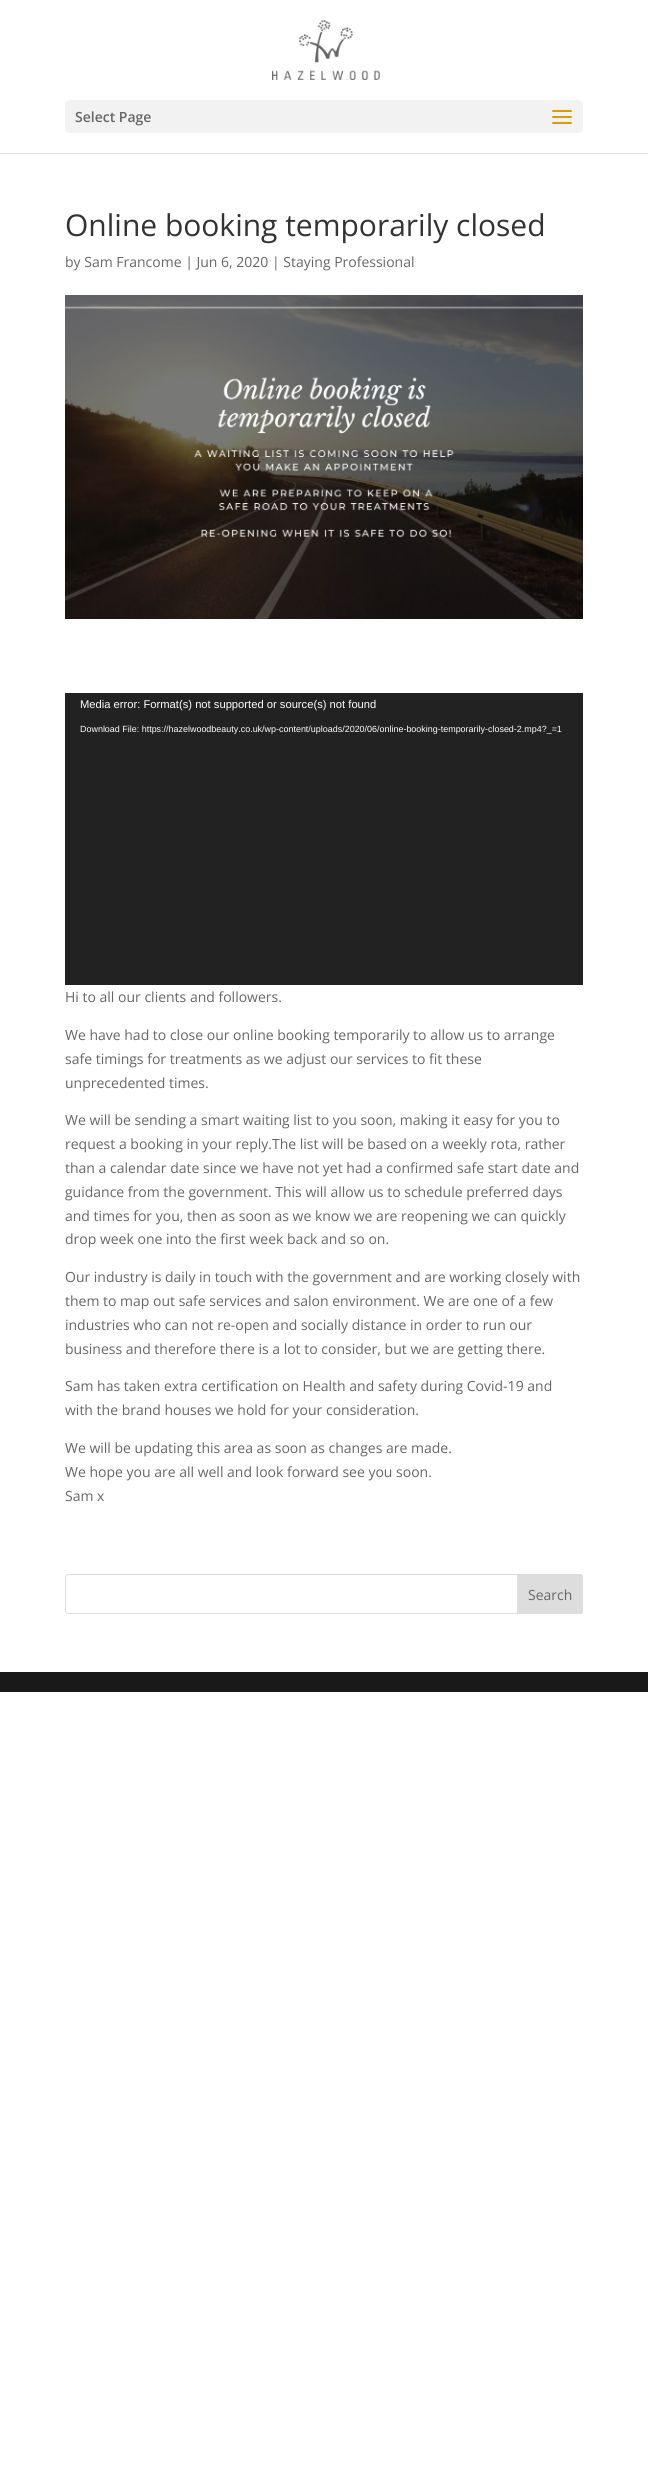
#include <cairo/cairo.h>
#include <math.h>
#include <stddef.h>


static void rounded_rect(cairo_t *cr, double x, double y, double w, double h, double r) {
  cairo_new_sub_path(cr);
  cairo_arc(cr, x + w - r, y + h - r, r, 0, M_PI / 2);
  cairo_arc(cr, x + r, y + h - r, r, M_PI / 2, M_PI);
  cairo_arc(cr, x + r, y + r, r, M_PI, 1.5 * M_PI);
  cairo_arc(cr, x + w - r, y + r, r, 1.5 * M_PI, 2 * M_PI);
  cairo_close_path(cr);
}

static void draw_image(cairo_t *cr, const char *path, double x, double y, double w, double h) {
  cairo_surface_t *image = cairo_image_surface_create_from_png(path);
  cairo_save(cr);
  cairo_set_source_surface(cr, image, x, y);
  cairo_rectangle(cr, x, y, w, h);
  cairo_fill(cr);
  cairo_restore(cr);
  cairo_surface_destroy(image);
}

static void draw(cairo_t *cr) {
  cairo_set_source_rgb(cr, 1, 1, 1);
  cairo_paint(cr);
  cairo_set_source_rgb(cr, 230 / 255.0, 230 / 255.0, 230 / 255.0);
  cairo_rectangle(cr, 0, 153, 648, 1);
  cairo_fill(cr);
  draw_image(cr, "images/1.png", 272, 20, 108, 60);
  cairo_set_source_rgb(cr, 242 / 255.0, 242 / 255.0, 242 / 255.0);
  rounded_rect(cr, 65, 100, 518, 33, 5);
  cairo_fill(cr);
  draw_image(cr, "images/2.png", 552, 110, 20, 14);
  draw_image(cr, "images/3.png", 65, 295, 518, 324);
  cairo_set_source_rgb(cr, 34 / 255.0, 34 / 255.0, 34 / 255.0);
  cairo_rectangle(cr, 65, 693, 518, 292);
  cairo_fill(cr);
  rounded_rect(cr, 65.5, 1574.5, 517, 39, 2.5);
  cairo_set_source_rgb(cr, 221 / 255.0, 221 / 255.0, 221 / 255.0);
  cairo_set_line_width(cr, 1);
  cairo_stroke(cr);
  cairo_new_path(cr);
  cairo_move_to(cr, 517.5, 1574.5);
  cairo_line_to(cr, 580, 1574.5);
  cairo_curve_to(cr, 581.5, 1574.5, 582.5, 1575.5, 582.5, 1577);
  cairo_line_to(cr, 582.5, 1611);
  cairo_curve_to(cr, 582.5, 1612.5, 581.5, 1613.5, 580, 1613.5);
  cairo_line_to(cr, 517.5, 1613.5);
  cairo_close_path(cr);
  cairo_fill_preserve(cr);
  cairo_stroke(cr);
  cairo_set_source_rgb(cr, 25 / 255.0, 25 / 255.0, 25 / 255.0);
  cairo_rectangle(cr, 0, 1672, 648, 20);
  cairo_fill(cr);
  cairo_select_font_face(cr, "Open Sans SemiBold", CAIRO_FONT_SLANT_NORMAL, CAIRO_FONT_WEIGHT_NORMAL);
  cairo_set_font_size(cr, 14);
  cairo_set_source_rgb(cr, 102 / 255.0, 102 / 255.0, 102 / 255.0);
  cairo_move_to(cr, 75, 122);
  cairo_show_text(cr, "Select Page");
  cairo_select_font_face(cr, "Open Sans", CAIRO_FONT_SLANT_NORMAL, CAIRO_FONT_WEIGHT_NORMAL);
  cairo_set_font_size(cr, 30);
  cairo_set_source_rgb(cr, 51 / 255.0, 51 / 255.0, 51 / 255.0);
  cairo_move_to(cr, 65, 236);
  cairo_show_text(cr, "Online booking temporarily closed");
  cairo_set_font_size(cr, 14);
  cairo_set_source_rgb(cr, 102 / 255.0, 102 / 255.0, 102 / 255.0);
  cairo_move_to(cr, 65, 267);
  cairo_show_text(cr, "by Sam Francome | Jun 6, 2020 | Staying Professional");
  cairo_select_font_face(cr, "Liberation Sans", CAIRO_FONT_SLANT_NORMAL, CAIRO_FONT_WEIGHT_NORMAL);
  cairo_set_font_size(cr, 11.2);
  cairo_set_source_rgb(cr, 1, 1, 1);
  cairo_move_to(cr, 80, 708);
  cairo_show_text(cr, "Media error: Format(s) not supported or source(s) not found");
  cairo_set_font_size(cr, 8.95);
  cairo_move_to(cr, 80, 732);
  cairo_show_text(cr, "Download File: https://hazelwoodbeauty.co.uk/wp-content/uploads/2020/06/online-booking-temporarily-closed-2.mp4?_=1");
  cairo_select_font_face(cr, "Open Sans", CAIRO_FONT_SLANT_NORMAL, CAIRO_FONT_WEIGHT_NORMAL);
  cairo_set_font_size(cr, 14);
  cairo_set_source_rgb(cr, 102 / 255.0, 102 / 255.0, 102 / 255.0);
  cairo_move_to(cr, 65, 1002);
  cairo_show_text(cr, "Hi to all our clients and followers.");
  cairo_move_to(cr, 65, 1040);
  cairo_show_text(cr, "We have had to close our online booking temporarily to allow us to arrange");
  cairo_move_to(cr, 65, 1064);
  cairo_show_text(cr, "safe timings for treatments as we adjust our services to fit these");
  cairo_move_to(cr, 65, 1088);
  cairo_show_text(cr, "unprecedented times.");
  cairo_move_to(cr, 65, 1125);
  cairo_show_text(cr, "We will be sending a smart waiting list to you soon, making it easy for you to");
  cairo_move_to(cr, 65, 1149);
  cairo_show_text(cr, "request a booking in your reply.The list will be based on a weekly rota, rather");
  cairo_move_to(cr, 65, 1173);
  cairo_show_text(cr, "than a calendar date since we have not yet had a confirmed safe start date and");
  cairo_move_to(cr, 65, 1197);
  cairo_show_text(cr, "guidance from the government. This will allow us to schedule preferred days");
  cairo_move_to(cr, 65, 1221);
  cairo_show_text(cr, "and times for you, then as soon as we know we are reopening we can quickly");
  cairo_move_to(cr, 65, 1244);
  cairo_show_text(cr, "drop week one into the first week back and so on.");
  cairo_move_to(cr, 65, 1282);
  cairo_show_text(cr, "Our industry is daily in touch with the government and are working closely with");
  cairo_move_to(cr, 65, 1306);
  cairo_show_text(cr, "them to map out safe services and salon environment. We are one of a few");
  cairo_move_to(cr, 65, 1330);
  cairo_show_text(cr, "industries who can not re-open and socially distance in order to run our");
  cairo_move_to(cr, 65, 1354);
  cairo_show_text(cr, "business and therefore there is a lot to consider, but we are getting there.");
  cairo_move_to(cr, 65, 1391);
  cairo_show_text(cr, "Sam has taken extra certification on Health and safety during Covid-19 and");
  cairo_move_to(cr, 65, 1415);
  cairo_show_text(cr, "with the brand houses we hold for your consideration.");
  cairo_move_to(cr, 65, 1453);
  cairo_show_text(cr, "We will be updating this area as soon as changes are made.");
  cairo_move_to(cr, 65, 1477);
  cairo_show_text(cr, "We hope you are all well and look forward see you soon.");
  cairo_move_to(cr, 65, 1501);
  cairo_show_text(cr, "Sam x");
  cairo_move_to(cr, 528, 1600);
  cairo_show_text(cr, "Search");
}

int main(void) {
  cairo_surface_t *surface = cairo_image_surface_create(CAIRO_FORMAT_RGB24, 648, 2475);
  cairo_t *cr = cairo_create(surface);
  cairo_font_options_t *options = cairo_font_options_create();
  cairo_font_options_set_hint_metrics(options, CAIRO_HINT_METRICS_OFF);
  cairo_font_options_set_hint_style(options, CAIRO_HINT_STYLE_NONE);
  cairo_set_font_options(cr, options);
  cairo_set_miter_limit(cr, 4);
  draw(cr);
  cairo_surface_write_to_png(surface, "out.png");
  cairo_font_options_destroy(options);
  cairo_destroy(cr);
  cairo_surface_destroy(surface);
  return 0;
}
